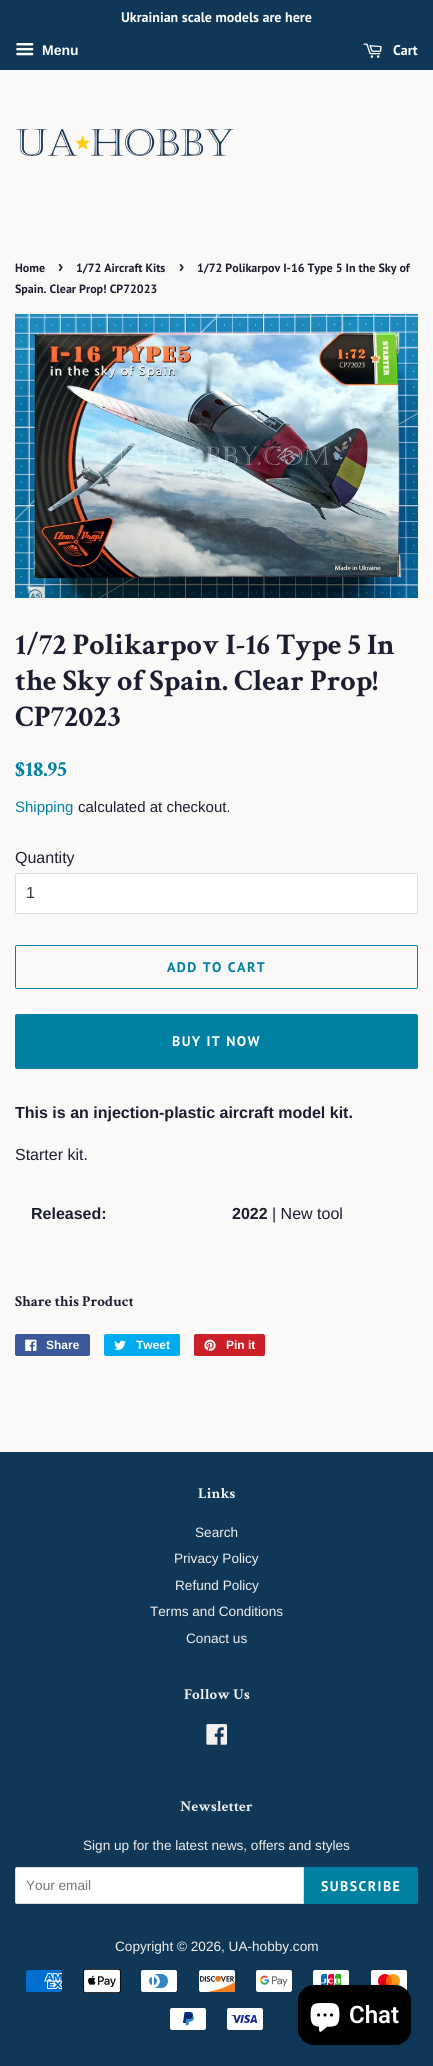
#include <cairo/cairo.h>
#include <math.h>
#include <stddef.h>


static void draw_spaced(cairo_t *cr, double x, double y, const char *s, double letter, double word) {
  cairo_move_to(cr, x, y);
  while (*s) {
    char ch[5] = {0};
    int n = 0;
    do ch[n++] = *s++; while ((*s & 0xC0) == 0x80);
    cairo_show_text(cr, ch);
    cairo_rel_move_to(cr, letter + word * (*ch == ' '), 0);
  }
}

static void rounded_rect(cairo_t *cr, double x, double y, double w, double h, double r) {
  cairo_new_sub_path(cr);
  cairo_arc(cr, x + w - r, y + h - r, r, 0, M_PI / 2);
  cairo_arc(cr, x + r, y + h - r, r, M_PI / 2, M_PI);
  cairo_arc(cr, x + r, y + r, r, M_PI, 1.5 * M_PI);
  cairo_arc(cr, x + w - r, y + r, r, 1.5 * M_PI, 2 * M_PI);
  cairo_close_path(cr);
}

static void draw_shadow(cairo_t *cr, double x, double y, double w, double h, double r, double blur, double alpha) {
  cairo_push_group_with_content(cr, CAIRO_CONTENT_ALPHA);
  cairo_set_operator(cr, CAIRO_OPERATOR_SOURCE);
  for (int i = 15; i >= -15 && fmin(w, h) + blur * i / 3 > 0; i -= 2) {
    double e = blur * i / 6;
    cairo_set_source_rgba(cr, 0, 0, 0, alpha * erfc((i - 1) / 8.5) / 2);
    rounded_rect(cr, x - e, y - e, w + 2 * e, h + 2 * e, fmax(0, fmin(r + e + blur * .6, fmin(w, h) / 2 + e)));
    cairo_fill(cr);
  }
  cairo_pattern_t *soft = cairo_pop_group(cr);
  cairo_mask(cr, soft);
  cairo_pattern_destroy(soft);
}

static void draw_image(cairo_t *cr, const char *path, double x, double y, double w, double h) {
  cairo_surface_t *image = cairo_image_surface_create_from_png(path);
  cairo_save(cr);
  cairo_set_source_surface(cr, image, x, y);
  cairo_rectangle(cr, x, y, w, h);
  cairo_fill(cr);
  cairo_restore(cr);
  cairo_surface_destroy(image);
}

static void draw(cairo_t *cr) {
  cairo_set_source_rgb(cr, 250 / 255.0, 249 / 255.0, 247 / 255.0);
  cairo_paint(cr);
  cairo_set_source_rgb(cr, 15 / 255.0, 56 / 255.0, 88 / 255.0);
  cairo_rectangle(cr, 0, 0, 433, 70);
  cairo_fill(cr);
  draw_image(cr, "images/1.png", 16, 43, 18, 13);
  draw_image(cr, "images/2.png", 363, 43, 19, 15);
  draw_image(cr, "images/3.png", 15, 126, 220, 32);
  draw_image(cr, "images/4.png", 15, 314, 403, 284);
  cairo_set_source_rgb(cr, 1, 1, 1);
  rounded_rect(cr, 15.5, 873.5, 402, 40, 1.5);
  cairo_fill_preserve(cr);
  cairo_set_source_rgb(cr, 221 / 255.0, 221 / 255.0, 224 / 255.0);
  cairo_set_line_width(cr, 1);
  cairo_stroke(cr);
  rounded_rect(cr, 15.5, 945.5, 402, 43, 1.5);
  cairo_set_source_rgb(cr, 0, 129 / 255.0, 163 / 255.0);
  cairo_stroke(cr);
  rounded_rect(cr, 15, 1014, 403, 55, 2);
  cairo_fill(cr);
  cairo_set_source_rgb(cr, 59 / 255.0, 89 / 255.0, 152 / 255.0);
  rounded_rect(cr, 15, 1334, 75, 22, 2);
  cairo_fill(cr);
  draw_image(cr, "images/5.png", 25, 1339, 12, 12);
  cairo_set_source_rgb(cr, 0, 172 / 255.0, 237 / 255.0);
  rounded_rect(cr, 104, 1334, 76, 22, 2);
  cairo_fill(cr);
  draw_image(cr, "images/6.png", 114, 1340, 12, 10);
  cairo_set_source_rgb(cr, 203 / 255.0, 32 / 255.0, 39 / 255.0);
  rounded_rect(cr, 194, 1334, 71, 22, 2);
  cairo_fill(cr);
  draw_image(cr, "images/7.png", 204, 1339, 12, 12);
  cairo_set_source_rgb(cr, 15 / 255.0, 56 / 255.0, 88 / 255.0);
  cairo_rectangle(cr, 0, 1452, 433, 614);
  cairo_fill(cr);
  draw_image(cr, "images/8.png", 206, 1724, 21, 21);
  cairo_set_source_rgb(cr, 1, 1, 1);
  cairo_new_path(cr);
  cairo_move_to(cr, 17, 1867);
  cairo_line_to(cr, 304, 1867);
  cairo_line_to(cr, 304, 1904);
  cairo_line_to(cr, 17, 1904);
  cairo_curve_to(cr, 16, 1904, 15, 1903, 15, 1902);
  cairo_line_to(cr, 15, 1869);
  cairo_curve_to(cr, 15, 1868, 16, 1867, 17, 1867);
  cairo_close_path(cr);
  cairo_fill(cr);
  cairo_new_path(cr);
  cairo_move_to(cr, 17, 1867.5);
  cairo_line_to(cr, 303.5, 1867.5);
  cairo_line_to(cr, 303.5, 1903.5);
  cairo_line_to(cr, 17, 1903.5);
  cairo_curve_to(cr, 16, 1903.5, 15.5, 1903, 15.5, 1902);
  cairo_line_to(cr, 15.5, 1869);
  cairo_curve_to(cr, 15.5, 1868, 16, 1867.5, 17, 1867.5);
  cairo_close_path(cr);
  cairo_set_source_rgba(cr, 27 / 255.0, 30 / 255.0, 47 / 255.0, 0.15);
  cairo_stroke(cr);
  cairo_set_source_rgb(cr, 0, 129 / 255.0, 163 / 255.0);
  cairo_new_path(cr);
  cairo_move_to(cr, 304, 1867);
  cairo_line_to(cr, 416, 1867);
  cairo_curve_to(cr, 417, 1867, 418, 1868, 418, 1869);
  cairo_line_to(cr, 418, 1902);
  cairo_curve_to(cr, 418, 1903, 417, 1904, 416, 1904);
  cairo_line_to(cr, 304, 1904);
  cairo_close_path(cr);
  cairo_fill(cr);
  draw_image(cr, "images/9.png", 25, 1969, 38, 24);
  draw_image(cr, "images/10.png", 83, 1969, 38, 24);
  draw_image(cr, "images/11.png", 140, 1969, 38, 24);
  draw_image(cr, "images/12.png", 198, 1969, 38, 24);
  draw_image(cr, "images/13.png", 255, 1969, 38, 24);
  draw_image(cr, "images/14.png", 312, 1969, 38, 17);
  draw_image(cr, "images/15.png", 370, 1969, 38, 23);
  draw_image(cr, "images/16.png", 169, 2007, 38, 24);
  draw_image(cr, "images/17.png", 226, 2007, 38, 24);
  cairo_set_source_rgb(cr, 0, 0, 0);
  draw_shadow(cr, 298, 1985, 113, 60, 16, 2.5, 0.15);
  cairo_set_source_rgb(cr, 0, 0, 0);
  rounded_rect(cr, 298, 1985, 113, 60, 16);
  cairo_fill(cr);
  draw_image(cr, "images/18.png", 310, 2003, 30, 29);
  cairo_select_font_face(cr, "PT Sans", CAIRO_FONT_SLANT_NORMAL, CAIRO_FONT_WEIGHT_BOLD);
  cairo_set_font_size(cr, 14);
  cairo_set_source_rgb(cr, 1, 1, 1);
  cairo_move_to(cr, 121, 22);
  cairo_show_text(cr, "Ukrainian scale models are here");
  cairo_select_font_face(cr, "Liberation Sans", CAIRO_FONT_SLANT_NORMAL, CAIRO_FONT_WEIGHT_BOLD);
  cairo_move_to(cr, 42, 55);
  cairo_show_text(cr, "Menu");
  cairo_select_font_face(cr, "PT Sans", CAIRO_FONT_SLANT_NORMAL, CAIRO_FONT_WEIGHT_BOLD);
  cairo_move_to(cr, 393, 55);
  cairo_show_text(cr, "Cart");
  cairo_set_font_size(cr, 12);
  cairo_set_source_rgb(cr, 27 / 255.0, 30 / 255.0, 47 / 255.0);
  cairo_move_to(cr, 15, 272);
  cairo_show_text(cr, "Home");
  cairo_set_font_size(cr, 17);
  cairo_move_to(cr, 58, 272);
  cairo_show_text(cr, "›");
  cairo_set_font_size(cr, 12);
  cairo_move_to(cr, 76, 272);
  cairo_show_text(cr, "1/72 Aircraft Kits");
  cairo_set_font_size(cr, 17);
  cairo_move_to(cr, 179, 272);
  cairo_show_text(cr, "›");
  cairo_set_font_size(cr, 12);
  cairo_move_to(cr, 197, 272);
  cairo_show_text(cr, "1/72 Polikarpov I-16 Type 5 In the Sky of");
  cairo_move_to(cr, 15, 293);
  cairo_show_text(cr, "Spain. Clear Prop! CP72023");
  cairo_select_font_face(cr, "Crimson Text", CAIRO_FONT_SLANT_NORMAL, CAIRO_FONT_WEIGHT_BOLD);
  cairo_set_font_size(cr, 30);
  cairo_move_to(cr, 15, 654);
  cairo_show_text(cr, "1/72 Polikarpov I-16 Type 5 In");
  cairo_move_to(cr, 15, 690);
  cairo_show_text(cr, "the Sky of Spain. Clear Prop!");
  cairo_move_to(cr, 15, 726);
  cairo_show_text(cr, "CP72023");
  cairo_set_font_size(cr, 22);
  cairo_set_source_rgb(cr, 0, 129 / 255.0, 163 / 255.0);
  cairo_move_to(cr, 15, 776);
  cairo_show_text(cr, "$18.95");
  cairo_select_font_face(cr, "Liberation Sans", CAIRO_FONT_SLANT_NORMAL, CAIRO_FONT_WEIGHT_NORMAL);
  cairo_set_font_size(cr, 15);
  cairo_move_to(cr, 15, 812);
  cairo_show_text(cr, "Shipping");
  cairo_set_source_rgb(cr, 27 / 255.0, 30 / 255.0, 47 / 255.0);
  cairo_move_to(cr, 78, 812);
  cairo_show_text(cr, "calculated at checkout.");
  cairo_set_font_size(cr, 16);
  cairo_move_to(cr, 15, 863);
  cairo_show_text(cr, "Quantity");
  cairo_set_source_rgb(cr, 51 / 255.0, 51 / 255.0, 51 / 255.0);
  cairo_move_to(cr, 26, 898);
  cairo_show_text(cr, "1");
  cairo_select_font_face(cr, "PT Sans", CAIRO_FONT_SLANT_NORMAL, CAIRO_FONT_WEIGHT_BOLD);
  cairo_set_font_size(cr, 14);
  cairo_set_source_rgb(cr, 0, 129 / 255.0, 163 / 255.0);
  draw_spaced(cr, 167, 972, "ADD TO CART", 1.4, 0);
  cairo_set_source_rgb(cr, 1, 1, 1);
  draw_spaced(cr, 172, 1046, "BUY IT NOW", 1.4, 0);
  cairo_select_font_face(cr, "Liberation Sans", CAIRO_FONT_SLANT_NORMAL, CAIRO_FONT_WEIGHT_BOLD);
  cairo_set_font_size(cr, 16);
  cairo_set_source_rgb(cr, 27 / 255.0, 30 / 255.0, 47 / 255.0);
  cairo_move_to(cr, 15, 1118);
  cairo_show_text(cr, "This is an injection-plastic aircraft model kit.");
  cairo_select_font_face(cr, "Liberation Sans", CAIRO_FONT_SLANT_NORMAL, CAIRO_FONT_WEIGHT_NORMAL);
  cairo_move_to(cr, 15, 1160);
  cairo_show_text(cr, "Starter kit.");
  cairo_select_font_face(cr, "Liberation Sans", CAIRO_FONT_SLANT_NORMAL, CAIRO_FONT_WEIGHT_BOLD);
  cairo_move_to(cr, 31, 1219);
  cairo_show_text(cr, "Released:");
  cairo_move_to(cr, 232, 1219);
  cairo_show_text(cr, "2022");
  cairo_select_font_face(cr, "Liberation Sans", CAIRO_FONT_SLANT_NORMAL, CAIRO_FONT_WEIGHT_NORMAL);
  cairo_move_to(cr, 272, 1219);
  cairo_show_text(cr, "| New tool");
  cairo_select_font_face(cr, "Crimson Text", CAIRO_FONT_SLANT_NORMAL, CAIRO_FONT_WEIGHT_BOLD);
  cairo_set_font_size(cr, 15);
  cairo_move_to(cr, 15, 1306);
  cairo_show_text(cr, "Share this Product");
  cairo_select_font_face(cr, "Liberation Sans", CAIRO_FONT_SLANT_NORMAL, CAIRO_FONT_WEIGHT_BOLD);
  cairo_set_font_size(cr, 12);
  cairo_set_source_rgb(cr, 1, 1, 1);
  cairo_move_to(cr, 46, 1349);
  cairo_show_text(cr, "Share");
  cairo_move_to(cr, 136, 1349);
  cairo_show_text(cr, "Tweet");
  cairo_move_to(cr, 226, 1349);
  cairo_show_text(cr, "Pin it");
  cairo_select_font_face(cr, "Crimson Text", CAIRO_FONT_SLANT_NORMAL, CAIRO_FONT_WEIGHT_BOLD);
  cairo_set_font_size(cr, 15);
  cairo_set_source_rgb(cr, 242 / 255.0, 240 / 255.0, 238 / 255.0);
  cairo_move_to(cr, 198, 1498);
  cairo_show_text(cr, "Links");
  cairo_select_font_face(cr, "Liberation Sans", CAIRO_FONT_SLANT_NORMAL, CAIRO_FONT_WEIGHT_NORMAL);
  cairo_set_font_size(cr, 13.6);
  cairo_move_to(cr, 195, 1537);
  cairo_show_text(cr, "Search");
  cairo_move_to(cr, 174, 1563);
  cairo_show_text(cr, "Privacy Policy");
  cairo_move_to(cr, 175, 1590);
  cairo_show_text(cr, "Refund Policy");
  cairo_move_to(cr, 150, 1616);
  cairo_show_text(cr, "Terms and Conditions");
  cairo_move_to(cr, 186, 1643);
  cairo_show_text(cr, "Conact us");
  cairo_select_font_face(cr, "Crimson Text", CAIRO_FONT_SLANT_NORMAL, CAIRO_FONT_WEIGHT_BOLD);
  cairo_set_font_size(cr, 15);
  cairo_move_to(cr, 184, 1699);
  cairo_show_text(cr, "Follow Us");
  cairo_move_to(cr, 180, 1811);
  cairo_show_text(cr, "Newsletter");
  cairo_select_font_face(cr, "Liberation Sans", CAIRO_FONT_SLANT_NORMAL, CAIRO_FONT_WEIGHT_NORMAL);
  cairo_set_font_size(cr, 13.6);
  cairo_move_to(cr, 83, 1850);
  cairo_show_text(cr, "Sign up for the latest news, offers and styles");
  cairo_set_source_rgb(cr, 117 / 255.0, 117 / 255.0, 117 / 255.0);
  cairo_move_to(cr, 26, 1890);
  cairo_show_text(cr, "Your email");
  cairo_select_font_face(cr, "PT Sans", CAIRO_FONT_SLANT_NORMAL, CAIRO_FONT_WEIGHT_BOLD);
  cairo_set_font_size(cr, 14);
  cairo_set_source_rgb(cr, 1, 1, 1);
  draw_spaced(cr, 321, 1891, "SUBSCRIBE", 1.4, 0);
  cairo_select_font_face(cr, "Liberation Sans", CAIRO_FONT_SLANT_NORMAL, CAIRO_FONT_WEIGHT_NORMAL);
  cairo_set_font_size(cr, 13.6);
  cairo_set_source_rgb(cr, 242 / 255.0, 240 / 255.0, 238 / 255.0);
  cairo_move_to(cr, 115, 1951);
  cairo_show_text(cr, "Copyright © 2026, UA-hobby.com");
  cairo_select_font_face(cr, "Roboto SemiBold", CAIRO_FONT_SLANT_NORMAL, CAIRO_FONT_WEIGHT_NORMAL);
  cairo_set_font_size(cr, 24);
  cairo_set_source_rgb(cr, 1, 1, 1);
  cairo_move_to(cr, 349, 2023);
  cairo_show_text(cr, "Chat");
}

int main(void) {
  cairo_surface_t *surface = cairo_image_surface_create(CAIRO_FORMAT_RGB24, 433, 2066);
  cairo_t *cr = cairo_create(surface);
  cairo_font_options_t *options = cairo_font_options_create();
  cairo_font_options_set_hint_metrics(options, CAIRO_HINT_METRICS_OFF);
  cairo_font_options_set_hint_style(options, CAIRO_HINT_STYLE_NONE);
  cairo_set_font_options(cr, options);
  cairo_set_miter_limit(cr, 4);
  draw(cr);
  cairo_surface_write_to_png(surface, "out.png");
  cairo_font_options_destroy(options);
  cairo_destroy(cr);
  cairo_surface_destroy(surface);
  return 0;
}
